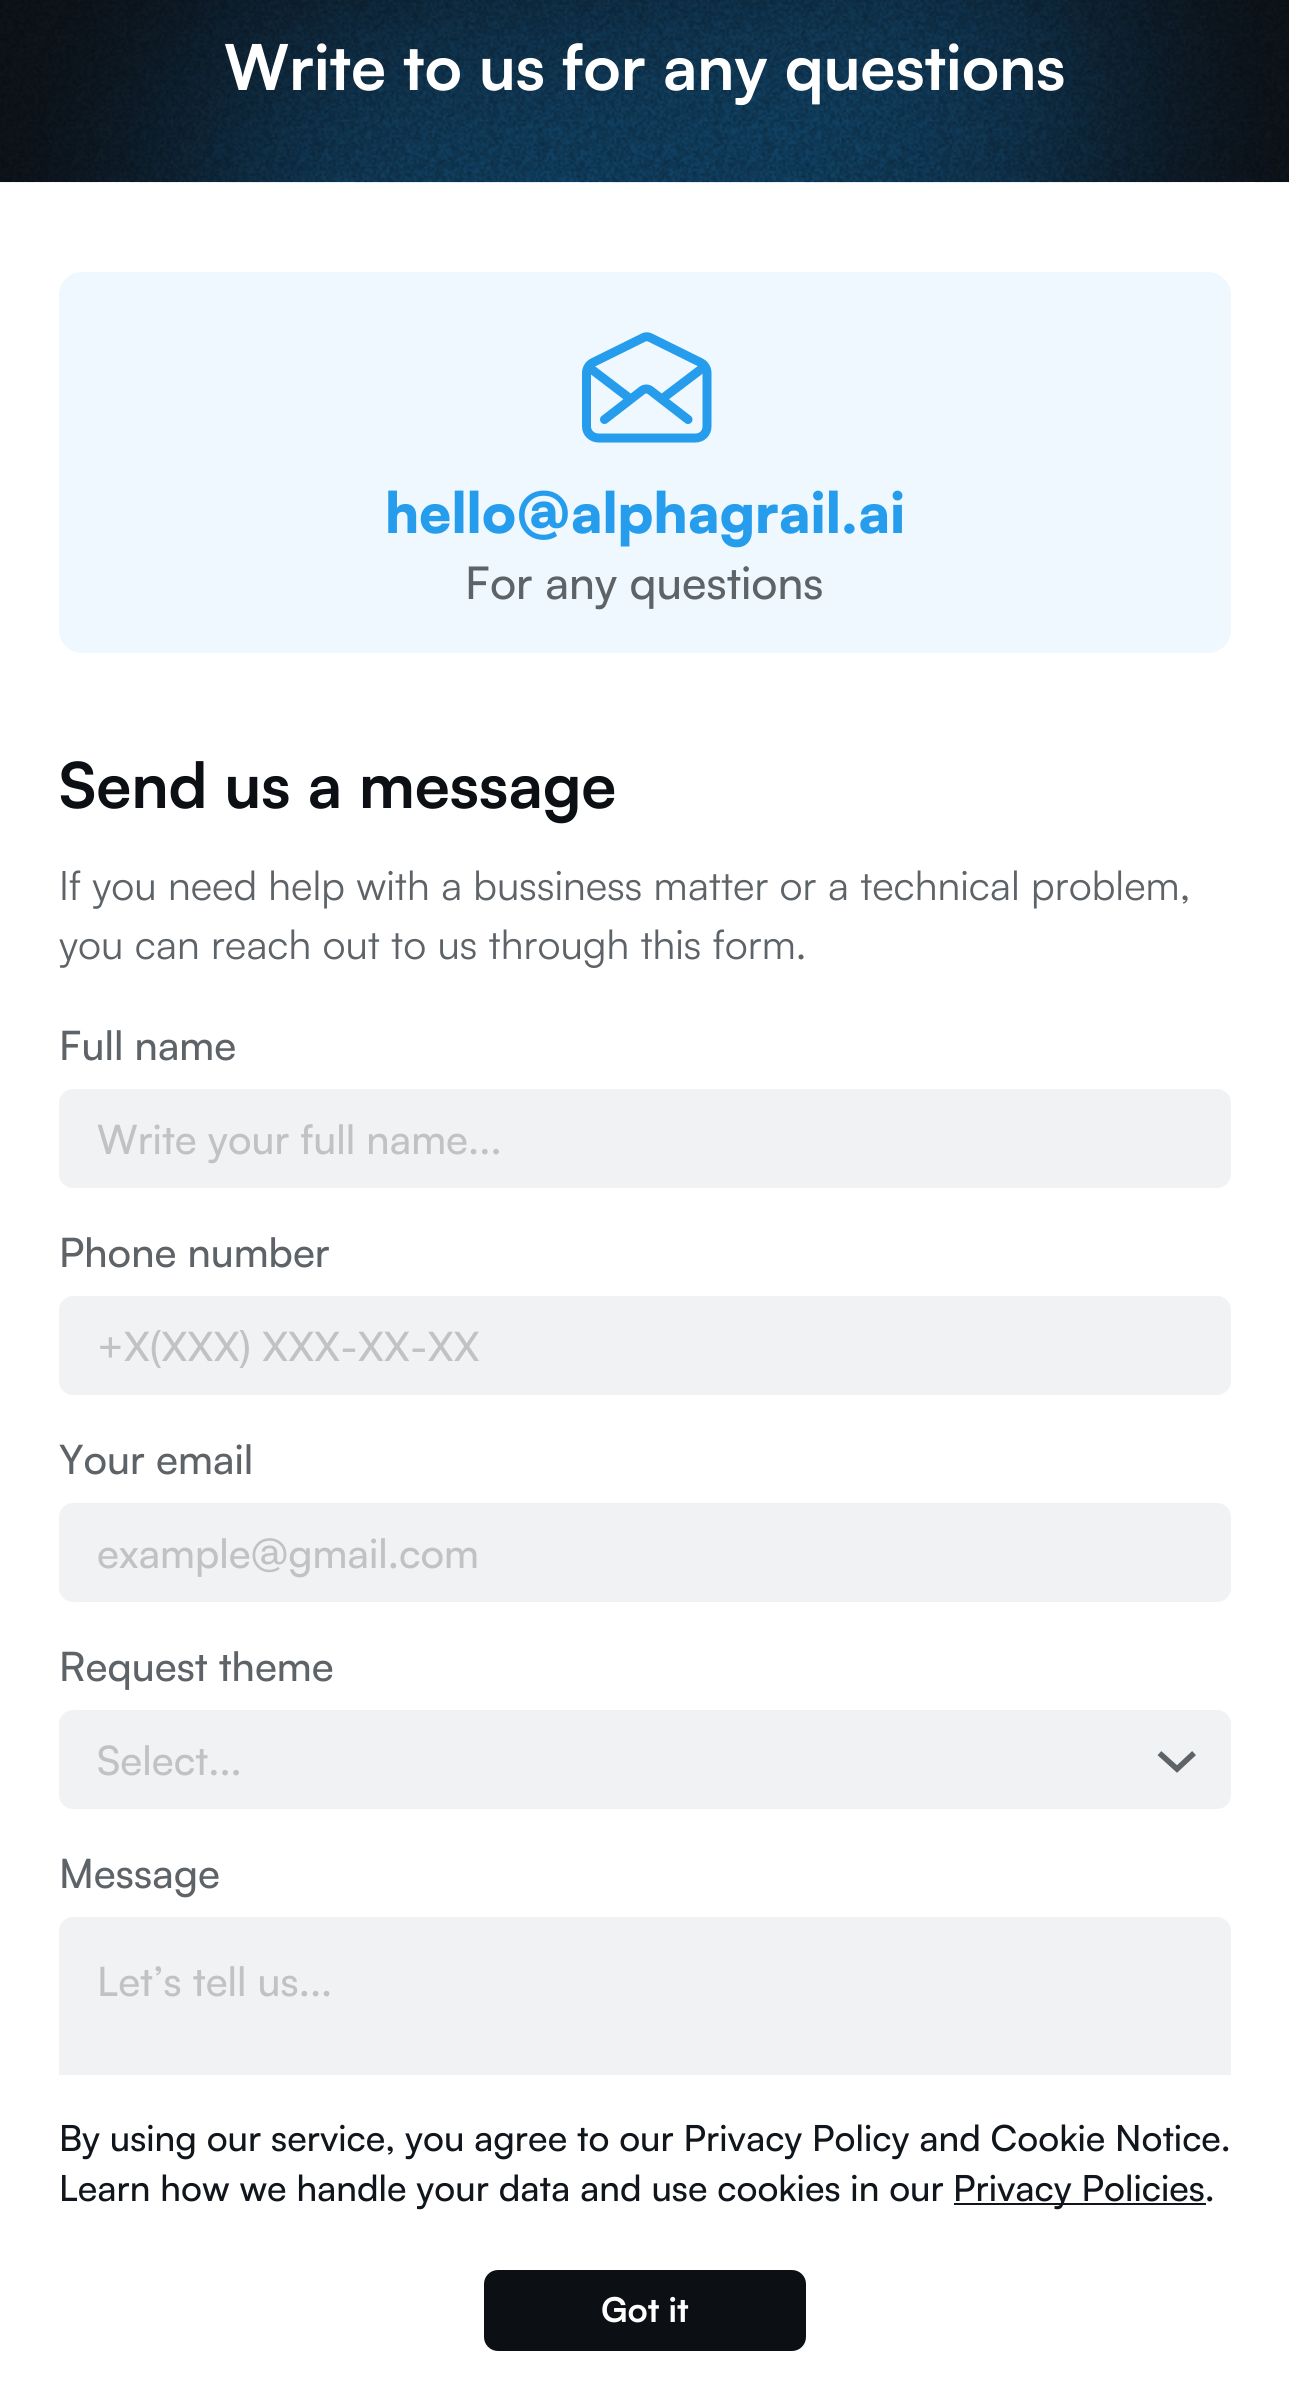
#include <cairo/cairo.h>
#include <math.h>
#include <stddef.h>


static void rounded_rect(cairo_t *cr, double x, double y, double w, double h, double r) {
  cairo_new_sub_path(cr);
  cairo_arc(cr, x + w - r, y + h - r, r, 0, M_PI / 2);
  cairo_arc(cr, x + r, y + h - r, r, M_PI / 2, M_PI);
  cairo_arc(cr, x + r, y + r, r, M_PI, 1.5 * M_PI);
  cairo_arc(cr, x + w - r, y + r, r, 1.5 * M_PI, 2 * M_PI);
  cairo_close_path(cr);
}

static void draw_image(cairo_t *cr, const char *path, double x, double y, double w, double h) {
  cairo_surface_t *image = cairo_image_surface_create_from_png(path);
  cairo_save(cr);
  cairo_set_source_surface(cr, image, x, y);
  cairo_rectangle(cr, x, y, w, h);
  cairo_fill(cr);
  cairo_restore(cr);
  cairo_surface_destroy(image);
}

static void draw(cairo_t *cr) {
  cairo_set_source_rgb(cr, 1, 1, 1);
  cairo_paint(cr);
  cairo_set_source_rgb(cr, 14 / 255.0, 18 / 255.0, 23 / 255.0);
  cairo_rectangle(cr, 0, 0, 1289, 182);
  cairo_fill(cr);
  draw_image(cr, "images/1.png", 0, 0, 1289, 183);
  draw_image(cr, "images/2.png", 0, 0, 1289, 183);
  cairo_set_source_rgb(cr, 238 / 255.0, 248 / 255.0, 254 / 255.0);
  rounded_rect(cr, 59, 272, 1172, 381, 23);
  cairo_fill(cr);
  cairo_new_path(cr);
  cairo_move_to(cr, 700.5, 362.5);
  cairo_line_to(cr, 650, 337.5);
  cairo_curve_to(cr, 648, 336.5, 645.5, 336.5, 643.5, 337.5);
  cairo_line_to(cr, 593, 362.5);
  cairo_curve_to(cr, 589, 364.5, 586.5, 368.5, 586.5, 373);
  cairo_line_to(cr, 586.5, 426.5);
  cairo_curve_to(cr, 586.5, 433, 592, 438, 598.5, 438);
  cairo_line_to(cr, 695.5, 438);
  cairo_curve_to(cr, 702, 438, 707, 433, 707, 426.5);
  cairo_line_to(cr, 707, 373);
  cairo_curve_to(cr, 707, 368.5, 704.5, 364.5, 700.5, 362.5);
  cairo_close_path(cr);
  cairo_set_source_rgb(cr, 37 / 255.0, 156 / 255.0, 236 / 255.0);
  cairo_set_line_width(cr, 9);
  cairo_set_line_cap(cr, CAIRO_LINE_CAP_ROUND);
  cairo_set_line_join(cr, CAIRO_LINE_JOIN_ROUND);
  cairo_stroke(cr);
  cairo_new_path(cr);
  cairo_move_to(cr, 688, 419.5);
  cairo_line_to(cr, 650.5, 390.5);
  cairo_curve_to(cr, 648, 388.5, 644.5, 388.5, 642, 390.5);
  cairo_line_to(cr, 604.5, 419.5);
  cairo_move_to(cr, 662.5, 398.5);
  cairo_line_to(cr, 702, 368.5);
  cairo_move_to(cr, 590.5, 368.5);
  cairo_line_to(cr, 630.5, 399);
  cairo_stroke(cr);
  cairo_set_source_rgb(cr, 241 / 255.0, 242 / 255.0, 243 / 255.0);
  rounded_rect(cr, 62.5, 1092.5, 1165, 92, 10.5);
  cairo_fill_preserve(cr);
  cairo_set_line_width(cr, 7);
  cairo_set_line_cap(cr, CAIRO_LINE_CAP_BUTT);
  cairo_set_line_join(cr, CAIRO_LINE_JOIN_MITER);
  cairo_stroke(cr);
  rounded_rect(cr, 62.5, 1299.5, 1165, 92, 10.5);
  cairo_fill_preserve(cr);
  cairo_stroke(cr);
  rounded_rect(cr, 62.5, 1506.5, 1165, 92, 10.5);
  cairo_fill_preserve(cr);
  cairo_stroke(cr);
  rounded_rect(cr, 62.5, 1713.5, 1165, 92, 10.5);
  cairo_fill_preserve(cr);
  cairo_stroke(cr);
  cairo_new_path(cr);
  cairo_move_to(cr, 1161.5, 1755);
  cairo_line_to(cr, 1177, 1769);
  cairo_line_to(cr, 1192, 1755);
  cairo_set_source_rgb(cr, 94 / 255.0, 99 / 255.0, 104 / 255.0);
  cairo_set_line_width(cr, 5.6);
  cairo_set_line_cap(cr, CAIRO_LINE_CAP_SQUARE);
  cairo_stroke(cr);
  cairo_set_source_rgb(cr, 241 / 255.0, 242 / 255.0, 243 / 255.0);
  rounded_rect(cr, 62.5, 1920.5, 1165, 331, 10.5);
  cairo_fill_preserve(cr);
  cairo_set_line_width(cr, 7);
  cairo_set_line_cap(cr, CAIRO_LINE_CAP_BUTT);
  cairo_stroke(cr);
  cairo_set_source_rgb(cr, 1, 1, 1);
  cairo_rectangle(cr, 59, 2075, 1172, 180);
  cairo_fill(cr);
  cairo_set_source_rgb(cr, 17 / 255.0, 22 / 255.0, 29 / 255.0);
  cairo_rectangle(cr, 954, 2203, 252, 2);
  cairo_fill(cr);
  cairo_set_source_rgb(cr, 12 / 255.0, 15 / 255.0, 19 / 255.0);
  rounded_rect(cr, 484, 2270, 322, 81, 14);
  cairo_fill(cr);
  cairo_select_font_face(cr, "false", CAIRO_FONT_SLANT_NORMAL, CAIRO_FONT_WEIGHT_BOLD);
  cairo_set_font_size(cr, 63);
  cairo_set_source_rgb(cr, 1, 1, 1);
  cairo_move_to(cr, 224, 90);
  cairo_show_text(cr, "Write to us for any questions");
  cairo_select_font_face(cr, "Satoshi Black", CAIRO_FONT_SLANT_NORMAL, CAIRO_FONT_WEIGHT_NORMAL);
  cairo_set_font_size(cr, 56.25);
  cairo_set_source_rgb(cr, 37 / 255.0, 156 / 255.0, 236 / 255.0);
  cairo_move_to(cr, 385, 533);
  cairo_show_text(cr, "hello@alphagrail.ai");
  cairo_select_font_face(cr, "Satoshi Medium", CAIRO_FONT_SLANT_NORMAL, CAIRO_FONT_WEIGHT_NORMAL);
  cairo_set_font_size(cr, 45);
  cairo_set_source_rgb(cr, 94 / 255.0, 99 / 255.0, 104 / 255.0);
  cairo_move_to(cr, 465, 599);
  cairo_show_text(cr, "For any questions");
  cairo_select_font_face(cr, "false", CAIRO_FONT_SLANT_NORMAL, CAIRO_FONT_WEIGHT_BOLD);
  cairo_set_font_size(cr, 63);
  cairo_set_source_rgb(cr, 12 / 255.0, 15 / 255.0, 19 / 255.0);
  cairo_move_to(cr, 59, 808);
  cairo_show_text(cr, "Send us a message");
  cairo_select_font_face(cr, "false", CAIRO_FONT_SLANT_NORMAL, CAIRO_FONT_WEIGHT_NORMAL);
  cairo_set_font_size(cr, 40.5);
  cairo_set_source_rgb(cr, 94 / 255.0, 99 / 255.0, 104 / 255.0);
  cairo_move_to(cr, 59, 900);
  cairo_show_text(cr, "If you need help with a bussiness matter or a technical problem,");
  cairo_move_to(cr, 59, 959);
  cairo_show_text(cr, "you can reach out to us through this form.");
  cairo_select_font_face(cr, "Satoshi Medium", CAIRO_FONT_SLANT_NORMAL, CAIRO_FONT_WEIGHT_NORMAL);
  cairo_move_to(cr, 59, 1060);
  cairo_show_text(cr, "Full name");
  cairo_set_source_rgb(cr, 193 / 255.0, 194 / 255.0, 196 / 255.0);
  cairo_move_to(cr, 97, 1154);
  cairo_show_text(cr, "Write your full name...");
  cairo_set_source_rgb(cr, 94 / 255.0, 99 / 255.0, 104 / 255.0);
  cairo_move_to(cr, 59, 1267);
  cairo_show_text(cr, "Phone number");
  cairo_set_source_rgb(cr, 193 / 255.0, 194 / 255.0, 196 / 255.0);
  cairo_move_to(cr, 97, 1361);
  cairo_show_text(cr, "+X(XXX) XXX-XX-XX");
  cairo_set_source_rgb(cr, 94 / 255.0, 99 / 255.0, 104 / 255.0);
  cairo_move_to(cr, 59, 1474);
  cairo_show_text(cr, "Your email");
  cairo_set_source_rgb(cr, 193 / 255.0, 194 / 255.0, 196 / 255.0);
  cairo_move_to(cr, 97, 1568);
  cairo_show_text(cr, "example@gmail.com");
  cairo_set_source_rgb(cr, 94 / 255.0, 99 / 255.0, 104 / 255.0);
  cairo_move_to(cr, 59, 1681);
  cairo_show_text(cr, "Request theme");
  cairo_set_source_rgb(cr, 193 / 255.0, 194 / 255.0, 196 / 255.0);
  cairo_move_to(cr, 97, 1775);
  cairo_show_text(cr, "Select...");
  cairo_set_source_rgb(cr, 94 / 255.0, 99 / 255.0, 104 / 255.0);
  cairo_move_to(cr, 59, 1888);
  cairo_show_text(cr, "Message");
  cairo_set_source_rgb(cr, 193 / 255.0, 194 / 255.0, 196 / 255.0);
  cairo_move_to(cr, 97, 1996);
  cairo_show_text(cr, "Let’s tell us...");
  cairo_set_font_size(cr, 36);
  cairo_set_source_rgb(cr, 17 / 255.0, 22 / 255.0, 29 / 255.0);
  cairo_move_to(cr, 59, 2151);
  cairo_show_text(cr, "By using our service, you agree to our Privacy Policy and Cookie Notice.");
  cairo_move_to(cr, 59, 2201);
  cairo_show_text(cr, "Learn how we handle your data and use cookies in our");
  cairo_move_to(cr, 953, 2201);
  cairo_show_text(cr, "Privacy Policies.");
  cairo_select_font_face(cr, "false", CAIRO_FONT_SLANT_NORMAL, CAIRO_FONT_WEIGHT_BOLD);
  cairo_set_font_size(cr, 34);
  cairo_set_source_rgb(cr, 1, 1, 1);
  cairo_move_to(cr, 601, 2322);
  cairo_show_text(cr, "Got it");
}

int main(void) {
  cairo_surface_t *surface = cairo_image_surface_create(CAIRO_FORMAT_RGB24, 1289, 2388);
  cairo_t *cr = cairo_create(surface);
  cairo_font_options_t *options = cairo_font_options_create();
  cairo_font_options_set_hint_metrics(options, CAIRO_HINT_METRICS_OFF);
  cairo_font_options_set_hint_style(options, CAIRO_HINT_STYLE_NONE);
  cairo_set_font_options(cr, options);
  cairo_set_miter_limit(cr, 4);
  draw(cr);
  cairo_surface_write_to_png(surface, "out.png");
  cairo_font_options_destroy(options);
  cairo_destroy(cr);
  cairo_surface_destroy(surface);
  return 0;
}
